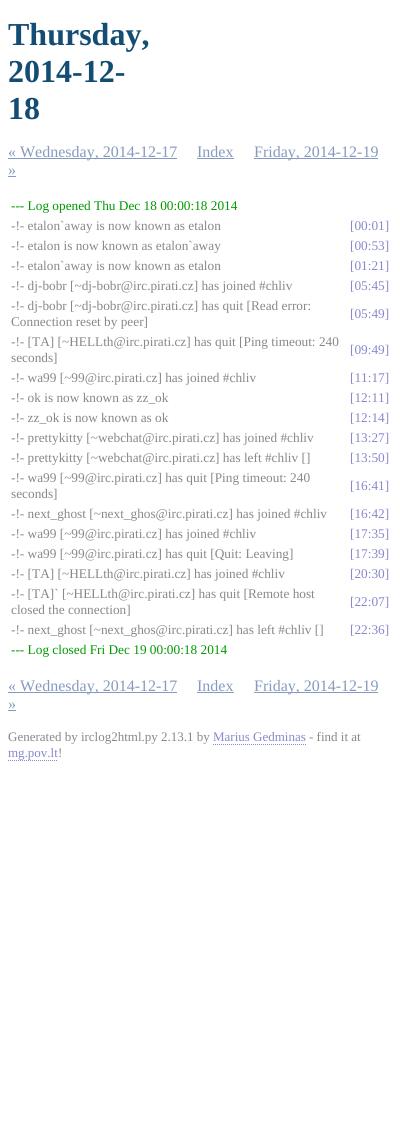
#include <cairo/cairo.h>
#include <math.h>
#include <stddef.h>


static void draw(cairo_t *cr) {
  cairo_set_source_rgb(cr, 1, 1, 1);
  cairo_paint(cr);
  cairo_set_source_rgb(cr, 134 / 255.0, 154 / 255.0, 191 / 255.0);
  cairo_rectangle(cr, 8, 158, 169, 1);
  cairo_fill(cr);
  cairo_rectangle(cr, 197, 158, 37, 1);
  cairo_fill(cr);
  cairo_rectangle(cr, 254, 158, 124, 1);
  cairo_fill(cr);
  cairo_rectangle(cr, 8, 176, 8, 1);
  cairo_fill(cr);
  cairo_rectangle(cr, 8, 692, 169, 1);
  cairo_fill(cr);
  cairo_rectangle(cr, 197, 692, 37, 1);
  cairo_fill(cr);
  cairo_rectangle(cr, 254, 692, 124, 1);
  cairo_fill(cr);
  cairo_rectangle(cr, 8, 710, 8, 1);
  cairo_fill(cr);
  cairo_new_path(cr);
  cairo_move_to(cr, 213, 744.5);
  cairo_line_to(cr, 306, 744.5);
  cairo_set_source_rgb(cr, 136 / 255.0, 136 / 255.0, 204 / 255.0);
  cairo_set_line_width(cr, 1);
  cairo_set_dash(cr, (double[]){1, 1}, 2, 0);
  cairo_stroke(cr);
  cairo_new_path(cr);
  cairo_move_to(cr, 8, 760.5);
  cairo_line_to(cr, 58, 760.5);
  cairo_stroke(cr);
  cairo_select_font_face(cr, "Liberation Serif", CAIRO_FONT_SLANT_NORMAL, CAIRO_FONT_WEIGHT_BOLD);
  cairo_set_font_size(cr, 32);
  cairo_set_source_rgb(cr, 19 / 255.0, 77 / 255.0, 115 / 255.0);
  cairo_move_to(cr, 8, 45);
  cairo_show_text(cr, "Thursday,");
  cairo_move_to(cr, 8, 82);
  cairo_show_text(cr, "2014-12-");
  cairo_move_to(cr, 8, 119);
  cairo_show_text(cr, "18");
  cairo_select_font_face(cr, "Liberation Serif", CAIRO_FONT_SLANT_NORMAL, CAIRO_FONT_WEIGHT_NORMAL);
  cairo_set_font_size(cr, 16);
  cairo_set_source_rgb(cr, 134 / 255.0, 154 / 255.0, 191 / 255.0);
  cairo_move_to(cr, 8, 157);
  cairo_show_text(cr, "« Wednesday, 2014-12-17");
  cairo_move_to(cr, 197, 157);
  cairo_show_text(cr, "Index");
  cairo_move_to(cr, 254, 157);
  cairo_show_text(cr, "Friday, 2014-12-19");
  cairo_move_to(cr, 8, 175);
  cairo_show_text(cr, "»");
  cairo_set_font_size(cr, 13.3);
  cairo_set_source_rgb(cr, 0, 153 / 255.0, 0);
  cairo_move_to(cr, 11, 210);
  cairo_show_text(cr, "--- Log opened Thu Dec 18 00:00:18 2014");
  cairo_set_source_rgb(cr, 136 / 255.0, 136 / 255.0, 136 / 255.0);
  cairo_move_to(cr, 11, 230);
  cairo_show_text(cr, "-!- etalon`away is now known as etalon");
  cairo_set_source_rgb(cr, 136 / 255.0, 136 / 255.0, 204 / 255.0);
  cairo_move_to(cr, 350, 230);
  cairo_show_text(cr, "[00:01]");
  cairo_set_source_rgb(cr, 136 / 255.0, 136 / 255.0, 136 / 255.0);
  cairo_move_to(cr, 11, 250);
  cairo_show_text(cr, "-!- etalon is now known as etalon`away");
  cairo_set_source_rgb(cr, 136 / 255.0, 136 / 255.0, 204 / 255.0);
  cairo_move_to(cr, 350, 250);
  cairo_show_text(cr, "[00:53]");
  cairo_set_source_rgb(cr, 136 / 255.0, 136 / 255.0, 136 / 255.0);
  cairo_move_to(cr, 11, 270);
  cairo_show_text(cr, "-!- etalon`away is now known as etalon");
  cairo_set_source_rgb(cr, 136 / 255.0, 136 / 255.0, 204 / 255.0);
  cairo_move_to(cr, 350, 270);
  cairo_show_text(cr, "[01:21]");
  cairo_set_source_rgb(cr, 136 / 255.0, 136 / 255.0, 136 / 255.0);
  cairo_move_to(cr, 11, 290);
  cairo_show_text(cr, "-!- dj-bobr [~dj-bobr@irc.pirati.cz] has joined #chliv");
  cairo_set_source_rgb(cr, 136 / 255.0, 136 / 255.0, 204 / 255.0);
  cairo_move_to(cr, 350, 290);
  cairo_show_text(cr, "[05:45]");
  cairo_set_source_rgb(cr, 136 / 255.0, 136 / 255.0, 136 / 255.0);
  cairo_move_to(cr, 11, 310);
  cairo_show_text(cr, "-!- dj-bobr [~dj-bobr@irc.pirati.cz] has quit [Read error:");
  cairo_move_to(cr, 11, 326);
  cairo_show_text(cr, "Connection reset by peer]");
  cairo_set_source_rgb(cr, 136 / 255.0, 136 / 255.0, 204 / 255.0);
  cairo_move_to(cr, 350, 318);
  cairo_show_text(cr, "[05:49]");
  cairo_set_source_rgb(cr, 136 / 255.0, 136 / 255.0, 136 / 255.0);
  cairo_move_to(cr, 11, 346);
  cairo_show_text(cr, "-!- [TA] [~HELLth@irc.pirati.cz] has quit [Ping timeout: 240");
  cairo_move_to(cr, 11, 362);
  cairo_show_text(cr, "seconds]");
  cairo_set_source_rgb(cr, 136 / 255.0, 136 / 255.0, 204 / 255.0);
  cairo_move_to(cr, 350, 354);
  cairo_show_text(cr, "[09:49]");
  cairo_set_source_rgb(cr, 136 / 255.0, 136 / 255.0, 136 / 255.0);
  cairo_move_to(cr, 11, 382);
  cairo_show_text(cr, "-!- wa99 [~99@irc.pirati.cz] has joined #chliv");
  cairo_set_source_rgb(cr, 136 / 255.0, 136 / 255.0, 204 / 255.0);
  cairo_move_to(cr, 350, 382);
  cairo_show_text(cr, "[11:17]");
  cairo_set_source_rgb(cr, 136 / 255.0, 136 / 255.0, 136 / 255.0);
  cairo_move_to(cr, 11, 402);
  cairo_show_text(cr, "-!- ok is now known as zz_ok");
  cairo_set_source_rgb(cr, 136 / 255.0, 136 / 255.0, 204 / 255.0);
  cairo_move_to(cr, 350, 402);
  cairo_show_text(cr, "[12:11]");
  cairo_set_source_rgb(cr, 136 / 255.0, 136 / 255.0, 136 / 255.0);
  cairo_move_to(cr, 11, 422);
  cairo_show_text(cr, "-!- zz_ok is now known as ok");
  cairo_set_source_rgb(cr, 136 / 255.0, 136 / 255.0, 204 / 255.0);
  cairo_move_to(cr, 350, 422);
  cairo_show_text(cr, "[12:14]");
  cairo_set_source_rgb(cr, 136 / 255.0, 136 / 255.0, 136 / 255.0);
  cairo_move_to(cr, 11, 442);
  cairo_show_text(cr, "-!- prettykitty [~webchat@irc.pirati.cz] has joined #chliv");
  cairo_set_source_rgb(cr, 136 / 255.0, 136 / 255.0, 204 / 255.0);
  cairo_move_to(cr, 350, 442);
  cairo_show_text(cr, "[13:27]");
  cairo_set_source_rgb(cr, 136 / 255.0, 136 / 255.0, 136 / 255.0);
  cairo_move_to(cr, 11, 462);
  cairo_show_text(cr, "-!- prettykitty [~webchat@irc.pirati.cz] has left #chliv []");
  cairo_set_source_rgb(cr, 136 / 255.0, 136 / 255.0, 204 / 255.0);
  cairo_move_to(cr, 350, 462);
  cairo_show_text(cr, "[13:50]");
  cairo_set_source_rgb(cr, 136 / 255.0, 136 / 255.0, 136 / 255.0);
  cairo_move_to(cr, 11, 482);
  cairo_show_text(cr, "-!- wa99 [~99@irc.pirati.cz] has quit [Ping timeout: 240");
  cairo_move_to(cr, 11, 498);
  cairo_show_text(cr, "seconds]");
  cairo_set_source_rgb(cr, 136 / 255.0, 136 / 255.0, 204 / 255.0);
  cairo_move_to(cr, 350, 490);
  cairo_show_text(cr, "[16:41]");
  cairo_set_source_rgb(cr, 136 / 255.0, 136 / 255.0, 136 / 255.0);
  cairo_move_to(cr, 11, 518);
  cairo_show_text(cr, "-!- next_ghost [~next_ghos@irc.pirati.cz] has joined #chliv");
  cairo_set_source_rgb(cr, 136 / 255.0, 136 / 255.0, 204 / 255.0);
  cairo_move_to(cr, 350, 518);
  cairo_show_text(cr, "[16:42]");
  cairo_set_source_rgb(cr, 136 / 255.0, 136 / 255.0, 136 / 255.0);
  cairo_move_to(cr, 11, 538);
  cairo_show_text(cr, "-!- wa99 [~99@irc.pirati.cz] has joined #chliv");
  cairo_set_source_rgb(cr, 136 / 255.0, 136 / 255.0, 204 / 255.0);
  cairo_move_to(cr, 350, 538);
  cairo_show_text(cr, "[17:35]");
  cairo_set_source_rgb(cr, 136 / 255.0, 136 / 255.0, 136 / 255.0);
  cairo_move_to(cr, 11, 558);
  cairo_show_text(cr, "-!- wa99 [~99@irc.pirati.cz] has quit [Quit: Leaving]");
  cairo_set_source_rgb(cr, 136 / 255.0, 136 / 255.0, 204 / 255.0);
  cairo_move_to(cr, 350, 558);
  cairo_show_text(cr, "[17:39]");
  cairo_set_source_rgb(cr, 136 / 255.0, 136 / 255.0, 136 / 255.0);
  cairo_move_to(cr, 11, 578);
  cairo_show_text(cr, "-!- [TA] [~HELLth@irc.pirati.cz] has joined #chliv");
  cairo_set_source_rgb(cr, 136 / 255.0, 136 / 255.0, 204 / 255.0);
  cairo_move_to(cr, 350, 578);
  cairo_show_text(cr, "[20:30]");
  cairo_set_source_rgb(cr, 136 / 255.0, 136 / 255.0, 136 / 255.0);
  cairo_move_to(cr, 11, 598);
  cairo_show_text(cr, "-!- [TA]` [~HELLth@irc.pirati.cz] has quit [Remote host");
  cairo_move_to(cr, 11, 614);
  cairo_show_text(cr, "closed the connection]");
  cairo_set_source_rgb(cr, 136 / 255.0, 136 / 255.0, 204 / 255.0);
  cairo_move_to(cr, 350, 606);
  cairo_show_text(cr, "[22:07]");
  cairo_set_source_rgb(cr, 136 / 255.0, 136 / 255.0, 136 / 255.0);
  cairo_move_to(cr, 11, 634);
  cairo_show_text(cr, "-!- next_ghost [~next_ghos@irc.pirati.cz] has left #chliv []");
  cairo_set_source_rgb(cr, 136 / 255.0, 136 / 255.0, 204 / 255.0);
  cairo_move_to(cr, 350, 634);
  cairo_show_text(cr, "[22:36]");
  cairo_set_source_rgb(cr, 0, 153 / 255.0, 0);
  cairo_move_to(cr, 11, 654);
  cairo_show_text(cr, "--- Log closed Fri Dec 19 00:00:18 2014");
  cairo_set_font_size(cr, 16);
  cairo_set_source_rgb(cr, 134 / 255.0, 154 / 255.0, 191 / 255.0);
  cairo_move_to(cr, 8, 691);
  cairo_show_text(cr, "« Wednesday, 2014-12-17");
  cairo_move_to(cr, 197, 691);
  cairo_show_text(cr, "Index");
  cairo_move_to(cr, 254, 691);
  cairo_show_text(cr, "Friday, 2014-12-19");
  cairo_move_to(cr, 8, 709);
  cairo_show_text(cr, "»");
  cairo_set_font_size(cr, 13);
  cairo_set_source_rgb(cr, 136 / 255.0, 136 / 255.0, 136 / 255.0);
  cairo_move_to(cr, 8, 741);
  cairo_show_text(cr, "Generated by irclog2html.py 2.13.1 by");
  cairo_set_source_rgb(cr, 136 / 255.0, 136 / 255.0, 204 / 255.0);
  cairo_move_to(cr, 213, 741);
  cairo_show_text(cr, "Marius Gedminas");
  cairo_set_source_rgb(cr, 136 / 255.0, 136 / 255.0, 136 / 255.0);
  cairo_move_to(cr, 309, 741);
  cairo_show_text(cr, "- find it at");
  cairo_set_source_rgb(cr, 136 / 255.0, 136 / 255.0, 204 / 255.0);
  cairo_move_to(cr, 8, 757);
  cairo_show_text(cr, "mg.pov.lt");
  cairo_set_source_rgb(cr, 136 / 255.0, 136 / 255.0, 136 / 255.0);
  cairo_move_to(cr, 58, 757);
  cairo_show_text(cr, "!");
}

int main(void) {
  cairo_surface_t *surface = cairo_image_surface_create(CAIRO_FORMAT_RGB24, 400, 1128);
  cairo_t *cr = cairo_create(surface);
  cairo_font_options_t *options = cairo_font_options_create();
  cairo_font_options_set_hint_metrics(options, CAIRO_HINT_METRICS_OFF);
  cairo_font_options_set_hint_style(options, CAIRO_HINT_STYLE_NONE);
  cairo_set_font_options(cr, options);
  cairo_set_miter_limit(cr, 4);
  draw(cr);
  cairo_surface_write_to_png(surface, "out.png");
  cairo_font_options_destroy(options);
  cairo_destroy(cr);
  cairo_surface_destroy(surface);
  return 0;
}
